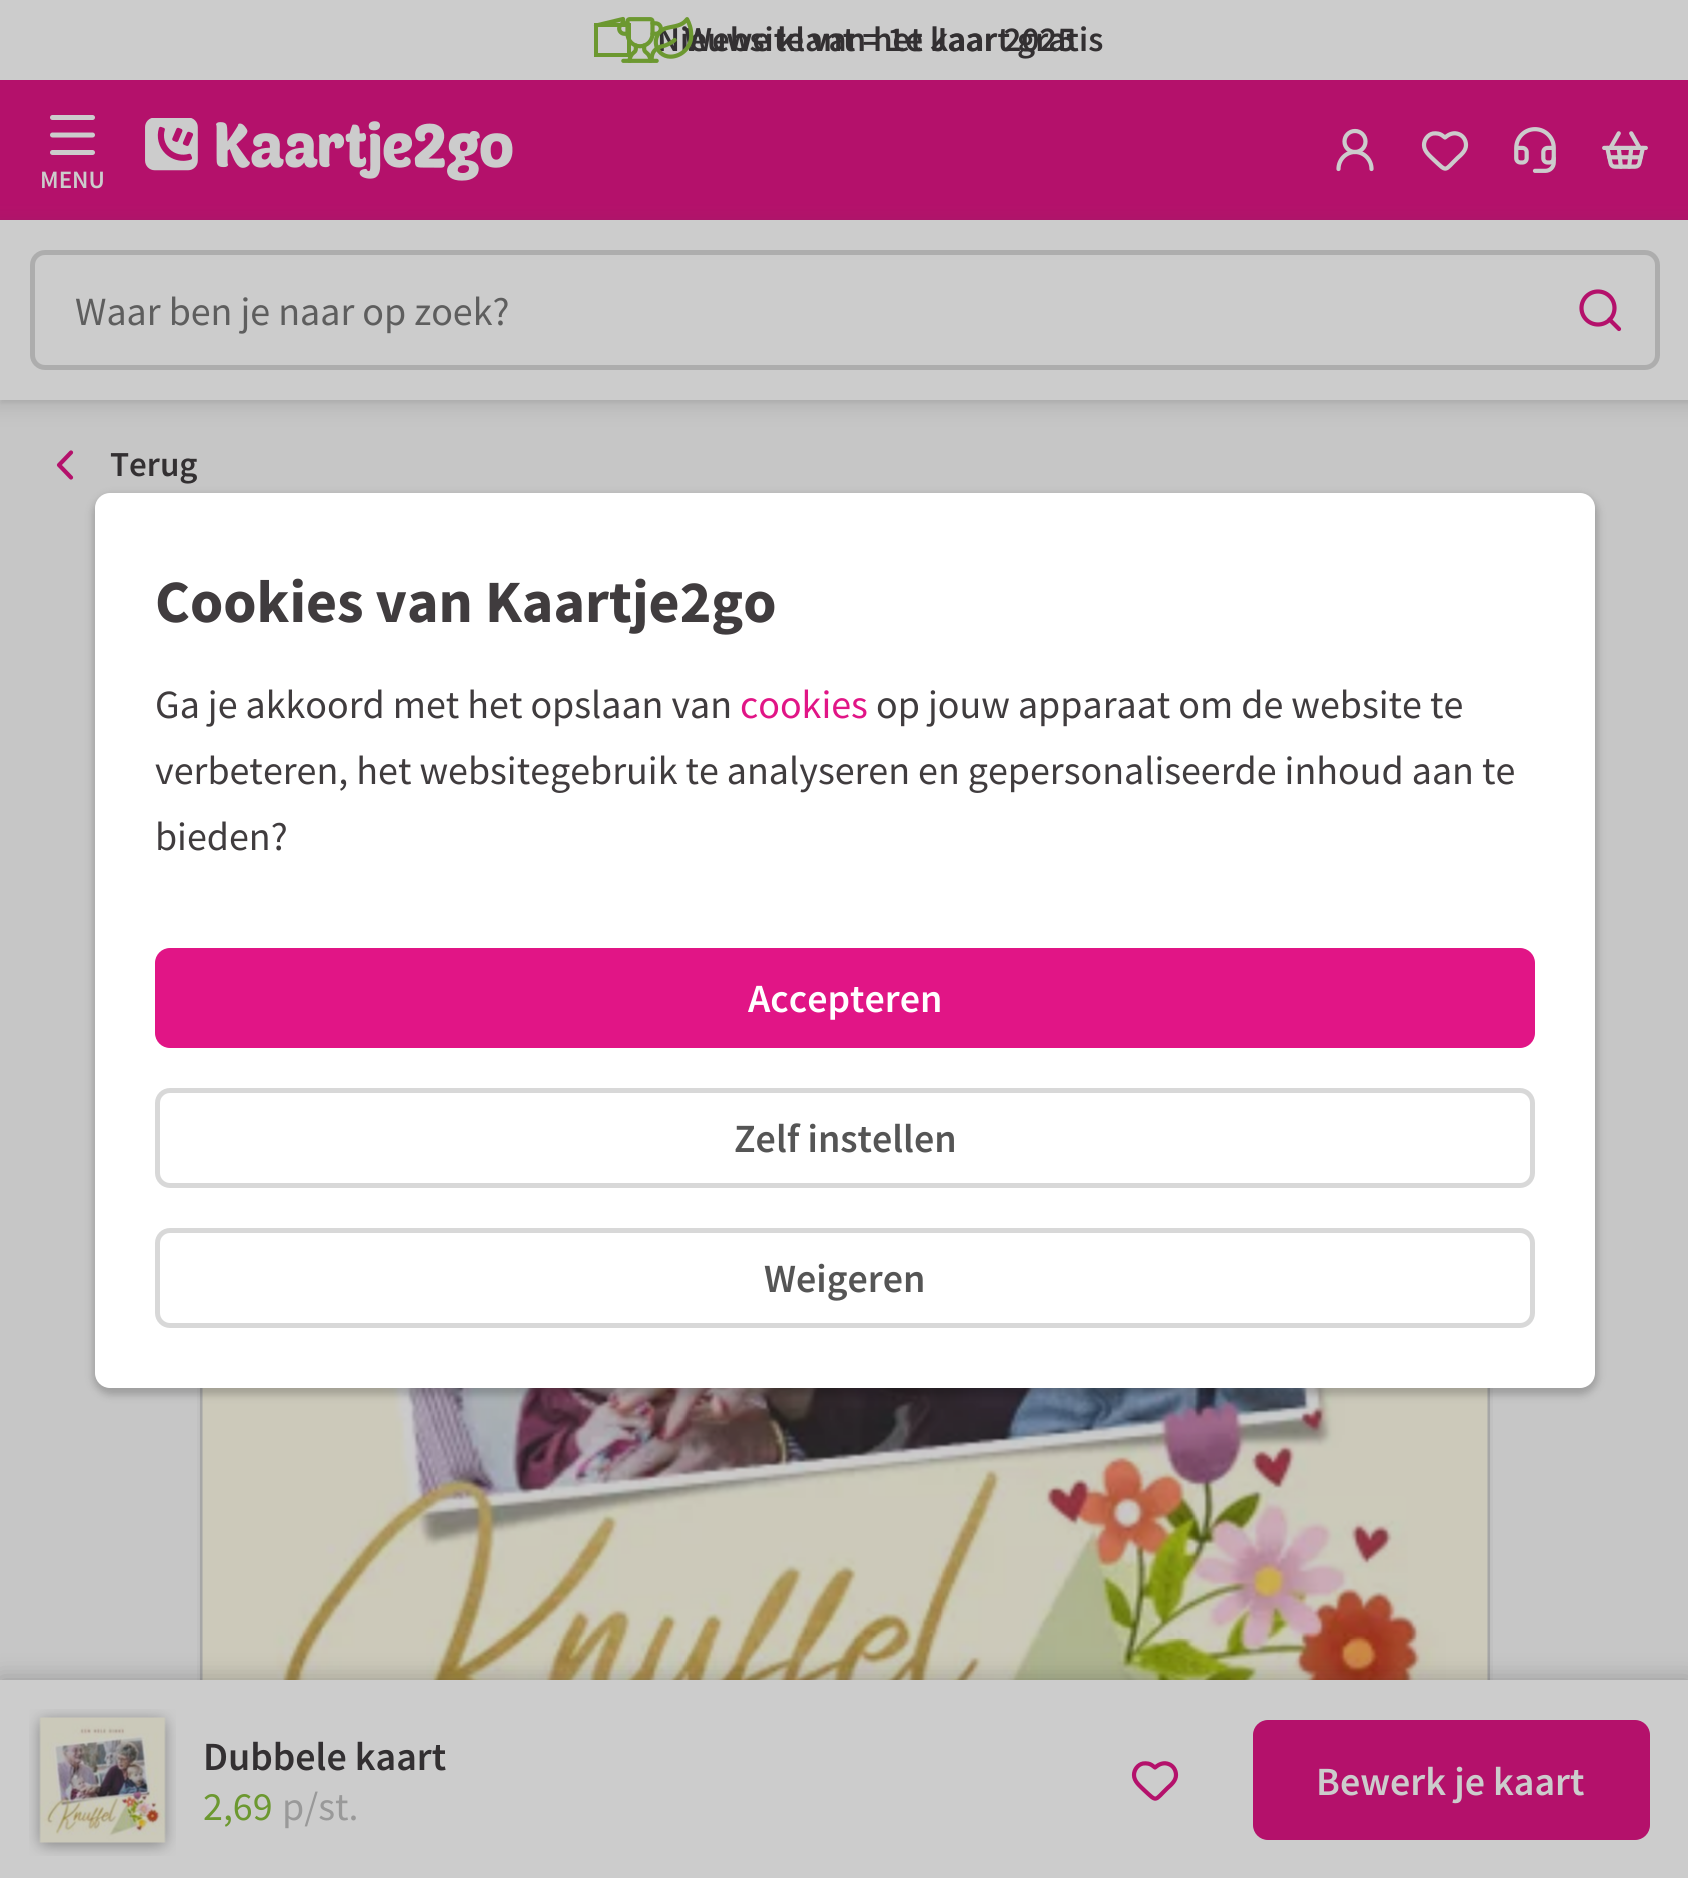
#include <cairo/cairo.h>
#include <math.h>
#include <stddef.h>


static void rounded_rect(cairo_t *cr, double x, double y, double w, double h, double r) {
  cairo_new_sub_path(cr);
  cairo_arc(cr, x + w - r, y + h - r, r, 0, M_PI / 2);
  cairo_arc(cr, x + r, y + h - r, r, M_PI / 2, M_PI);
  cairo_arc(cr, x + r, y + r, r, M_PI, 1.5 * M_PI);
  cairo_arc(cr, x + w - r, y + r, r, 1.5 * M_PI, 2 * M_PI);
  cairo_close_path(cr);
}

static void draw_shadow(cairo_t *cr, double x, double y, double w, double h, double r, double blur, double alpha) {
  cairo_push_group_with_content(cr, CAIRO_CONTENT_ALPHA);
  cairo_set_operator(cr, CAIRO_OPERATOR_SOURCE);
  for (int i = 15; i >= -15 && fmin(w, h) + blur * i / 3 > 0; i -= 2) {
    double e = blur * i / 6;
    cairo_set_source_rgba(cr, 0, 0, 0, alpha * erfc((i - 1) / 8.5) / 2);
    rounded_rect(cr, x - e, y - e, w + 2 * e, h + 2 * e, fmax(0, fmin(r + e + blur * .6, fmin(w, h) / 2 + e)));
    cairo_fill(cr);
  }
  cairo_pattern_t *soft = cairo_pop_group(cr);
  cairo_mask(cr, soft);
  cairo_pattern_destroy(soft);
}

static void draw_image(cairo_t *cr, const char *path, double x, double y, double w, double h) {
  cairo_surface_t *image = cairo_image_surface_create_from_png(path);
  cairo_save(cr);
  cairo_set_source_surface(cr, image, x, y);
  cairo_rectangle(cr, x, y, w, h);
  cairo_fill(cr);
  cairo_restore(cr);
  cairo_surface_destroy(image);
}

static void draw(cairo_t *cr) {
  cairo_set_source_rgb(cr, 204 / 255.0, 204 / 255.0, 204 / 255.0);
  cairo_paint(cr);
  cairo_new_path(cr);
  cairo_move_to(cr, 596, 25.5);
  cairo_line_to(cr, 623, 19);
  cairo_line_to(cr, 623, 23.5);
  cairo_set_source_rgb(cr, 108 / 255.0, 152 / 255.0, 48 / 255.0);
  cairo_set_line_width(cr, 4.2);
  cairo_set_line_cap(cr, CAIRO_LINE_CAP_ROUND);
  cairo_set_line_join(cr, CAIRO_LINE_JOIN_ROUND);
  cairo_stroke(cr);
  cairo_rectangle(cr, 596, 25, 33, 30);
  cairo_set_line_width(cr, 4);
  cairo_set_line_cap(cr, CAIRO_LINE_CAP_BUTT);
  cairo_set_line_join(cr, CAIRO_LINE_JOIN_MITER);
  cairo_stroke(cr);
  cairo_set_source_rgb(cr, 180 / 255.0, 17 / 255.0, 107 / 255.0);
  cairo_rectangle(cr, 0, 80, 1688, 140);
  cairo_fill(cr);
  cairo_arc(cr, 1355, 141.5, 10.5, 0, 2 * M_PI);
  cairo_set_source_rgb(cr, 204 / 255.0, 204 / 255.0, 204 / 255.0);
  cairo_set_line_width(cr, 4.2);
  cairo_stroke(cr);
  cairo_new_path(cr);
  cairo_move_to(cr, 1371.5, 169);
  cairo_curve_to(cr, 1371.5, 159.5, 1364, 152, 1355, 152);
  cairo_curve_to(cr, 1346, 152, 1338.5, 159.5, 1338.5, 169);
  cairo_set_line_cap(cr, CAIRO_LINE_CAP_ROUND);
  cairo_set_line_join(cr, CAIRO_LINE_JOIN_ROUND);
  cairo_stroke(cr);
  cairo_new_path(cr);
  cairo_move_to(cr, 1424, 145);
  cairo_curve_to(cr, 1424, 139.5, 1428, 134.5, 1433, 133.5);
  cairo_curve_to(cr, 1436.5, 133, 1440, 133.5, 1443, 136);
  cairo_line_to(cr, 1445, 137.5);
  cairo_line_to(cr, 1447, 136);
  cairo_curve_to(cr, 1450.5, 133.5, 1454.5, 132.5, 1458.5, 134);
  cairo_curve_to(cr, 1463, 135.5, 1466, 140, 1466, 145);
  cairo_curve_to(cr, 1466, 150.5, 1461.5, 154.5, 1457.5, 158);
  cairo_curve_to(cr, 1444, 171, 1447.5, 172.5, 1434, 160);
  cairo_curve_to(cr, 1430, 156, 1424, 151.5, 1424, 145);
  cairo_stroke(cr);
  draw_image(cr, "images/3.png", 1514, 127, 42, 46);
  draw_image(cr, "images/4.png", 1602, 131, 46, 38);
  cairo_new_path(cr);
  cairo_move_to(cr, 52.5, 117.5);
  cairo_line_to(cr, 92.5, 117.5);
  cairo_move_to(cr, 52.5, 135);
  cairo_line_to(cr, 92.5, 135);
  cairo_move_to(cr, 52.5, 152.5);
  cairo_line_to(cr, 92.5, 152.5);
  cairo_set_line_width(cr, 5);
  cairo_stroke(cr);
  draw_image(cr, "images/5.png", 145, 118, 368, 63);
  cairo_set_source_rgb(cr, 198 / 255.0, 198 / 255.0, 198 / 255.0);
  cairo_rectangle(cr, 0, 400, 1688, 1280);
  cairo_fill(cr);
  cairo_set_source_rgb(cr, 79 / 255.0, 79 / 255.0, 79 / 255.0);
  draw_shadow(cr, -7, 218, 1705, 195, 0, 7.5, 0.1);
  cairo_set_source_rgb(cr, 53 / 255.0, 53 / 255.0, 53 / 255.0);
  draw_shadow(cr, 0, 223, 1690, 180, 0, 2.5, 0.1);
  cairo_set_source_rgb(cr, 204 / 255.0, 204 / 255.0, 204 / 255.0);
  cairo_rectangle(cr, 0, 220, 1688, 180);
  cairo_fill(cr);
  rounded_rect(cr, 32.5, 252.5, 1625, 115, 12.5);
  cairo_set_source_rgb(cr, 173 / 255.0, 173 / 255.0, 173 / 255.0);
  cairo_set_line_cap(cr, CAIRO_LINE_CAP_BUTT);
  cairo_set_line_join(cr, CAIRO_LINE_JOIN_MITER);
  cairo_stroke(cr);
  cairo_new_path(cr);
  cairo_move_to(cr, 1619, 329);
  cairo_line_to(cr, 1609.5, 319.5);
  cairo_set_source_rgb(cr, 180 / 255.0, 17 / 255.0, 107 / 255.0);
  cairo_set_line_width(cr, 4.2);
  cairo_set_line_cap(cr, CAIRO_LINE_CAP_ROUND);
  cairo_set_line_join(cr, CAIRO_LINE_JOIN_ROUND);
  cairo_stroke(cr);
  cairo_arc(cr, 1598, 308, 16.5, 0, 2 * M_PI);
  cairo_set_line_cap(cr, CAIRO_LINE_CAP_BUTT);
  cairo_set_line_join(cr, CAIRO_LINE_JOIN_MITER);
  cairo_stroke(cr);
  cairo_new_path(cr);
  cairo_move_to(cr, 71, 477.5);
  cairo_line_to(cr, 59, 465);
  cairo_line_to(cr, 71, 452.5);
  cairo_set_line_cap(cr, CAIRO_LINE_CAP_ROUND);
  cairo_set_line_join(cr, CAIRO_LINE_JOIN_ROUND);
  cairo_stroke(cr);
  cairo_rectangle(cr, 201.5, 644.5, 1287, 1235);
  cairo_set_source_rgb(cr, 173 / 255.0, 173 / 255.0, 173 / 255.0);
  cairo_set_line_width(cr, 3);
  cairo_set_line_cap(cr, CAIRO_LINE_CAP_BUTT);
  cairo_set_line_join(cr, CAIRO_LINE_JOIN_MITER);
  cairo_stroke(cr);
  draw_image(cr, "images/6.png", 197, 1388, 1296, 292);
  cairo_set_source_rgb(cr, 0, 0, 0);
  draw_shadow(cr, 0, 1680, 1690, 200, 0, 12.5, 0.25);
  cairo_set_source_rgb(cr, 204 / 255.0, 204 / 255.0, 204 / 255.0);
  cairo_rectangle(cr, 0, 1680, 1688, 198);
  cairo_fill(cr);
  draw_image(cr, "images/7.png", 29, 1709, 147, 147);
  cairo_new_path(cr);
  cairo_move_to(cr, 1134, 1775);
  cairo_curve_to(cr, 1134, 1769.5, 1138, 1764.5, 1143, 1763.5);
  cairo_curve_to(cr, 1146.5, 1763, 1150, 1763.5, 1153, 1766);
  cairo_line_to(cr, 1155, 1767.5);
  cairo_line_to(cr, 1157, 1766);
  cairo_curve_to(cr, 1160.5, 1763.5, 1164.5, 1762.5, 1168.5, 1764);
  cairo_curve_to(cr, 1173, 1765.5, 1176, 1770, 1176, 1775);
  cairo_curve_to(cr, 1176, 1780.5, 1171.5, 1784.5, 1167.5, 1788);
  cairo_curve_to(cr, 1154, 1801, 1157.5, 1802.5, 1144, 1790);
  cairo_curve_to(cr, 1140, 1786, 1134, 1781.5, 1134, 1775);
  cairo_set_source_rgb(cr, 180 / 255.0, 17 / 255.0, 107 / 255.0);
  cairo_set_line_width(cr, 4.2);
  cairo_set_line_cap(cr, CAIRO_LINE_CAP_ROUND);
  cairo_set_line_join(cr, CAIRO_LINE_JOIN_ROUND);
  cairo_stroke(cr);
  rounded_rect(cr, 1253, 1720, 397, 120, 15);
  cairo_fill(cr);
  cairo_set_source_rgb(cr, 0, 0, 0);
  draw_shadow(cr, 93, 495, 1505, 900, 18, 4, 0.2);
  cairo_set_source_rgb(cr, 1, 1, 1);
  rounded_rect(cr, 95, 493, 1500, 895, 15);
  cairo_fill(cr);
  cairo_set_source_rgb(cr, 225 / 255.0, 21 / 255.0, 134 / 255.0);
  rounded_rect(cr, 155, 948, 1380, 100, 15);
  cairo_fill(cr);
  rounded_rect(cr, 157.5, 1090.5, 1375, 95, 12.5);
  cairo_set_source_rgb(cr, 216 / 255.0, 216 / 255.0, 216 / 255.0);
  cairo_set_line_width(cr, 5);
  cairo_set_line_cap(cr, CAIRO_LINE_CAP_BUTT);
  cairo_set_line_join(cr, CAIRO_LINE_JOIN_MITER);
  cairo_stroke(cr);
  rounded_rect(cr, 157.5, 1230.5, 1375, 95, 12.5);
  cairo_stroke(cr);
  cairo_select_font_face(cr, "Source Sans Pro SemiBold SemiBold", CAIRO_FONT_SLANT_NORMAL, CAIRO_FONT_WEIGHT_NORMAL);
  cairo_set_font_size(cr, 35);
  cairo_set_source_rgb(cr, 51 / 255.0, 48 / 255.0, 50 / 255.0);
  cairo_move_to(cr, 657, 51);
  cairo_show_text(cr, "Nieuwe klant = 1e kaart gratis");
  draw_image(cr, "images/2.png", 617, 17, 46, 46);
  cairo_move_to(cr, 684, 51);
  cairo_show_text(cr, "Website van het Jaar 2025");
  draw_image(cr, "images/1.png", 650, 17, 44, 42);
  cairo_set_font_size(cr, 25);
  cairo_set_source_rgb(cr, 204 / 255.0, 204 / 255.0, 204 / 255.0);
  cairo_move_to(cr, 40, 188);
  cairo_show_text(cr, "MENU");
  cairo_select_font_face(cr, "Source Sans Pro", CAIRO_FONT_SLANT_NORMAL, CAIRO_FONT_WEIGHT_NORMAL);
  cairo_set_font_size(cr, 40);
  cairo_set_source_rgb(cr, 94 / 255.0, 94 / 255.0, 94 / 255.0);
  cairo_move_to(cr, 75, 325);
  cairo_show_text(cr, "Waar ben je naar op zoek?");
  cairo_select_font_face(cr, "Source Sans Pro SemiBold SemiBold", CAIRO_FONT_SLANT_NORMAL, CAIRO_FONT_WEIGHT_NORMAL);
  cairo_set_font_size(cr, 35);
  cairo_set_source_rgb(cr, 51 / 255.0, 48 / 255.0, 50 / 255.0);
  cairo_move_to(cr, 110, 476);
  cairo_show_text(cr, "Terug");
  cairo_set_font_size(cr, 40);
  cairo_move_to(cr, 203, 1770);
  cairo_show_text(cr, "Dubbele kaart");
  cairo_select_font_face(cr, "Source Sans Pro", CAIRO_FONT_SLANT_NORMAL, CAIRO_FONT_WEIGHT_NORMAL);
  cairo_set_source_rgb(cr, 108 / 255.0, 152 / 255.0, 48 / 255.0);
  cairo_move_to(cr, 203, 1820);
  cairo_show_text(cr, "2,69");
  cairo_set_source_rgb(cr, 153 / 255.0, 153 / 255.0, 153 / 255.0);
  cairo_move_to(cr, 282, 1820);
  cairo_show_text(cr, "p/st.");
  cairo_select_font_face(cr, "Source Sans Pro SemiBold SemiBold", CAIRO_FONT_SLANT_NORMAL, CAIRO_FONT_WEIGHT_NORMAL);
  cairo_set_source_rgb(cr, 204 / 255.0, 204 / 255.0, 204 / 255.0);
  cairo_move_to(cr, 1316, 1795);
  cairo_show_text(cr, "Bewerk je kaart");
  cairo_select_font_face(cr, "Source Sans Pro", CAIRO_FONT_SLANT_NORMAL, CAIRO_FONT_WEIGHT_BOLD);
  cairo_set_font_size(cr, 60);
  cairo_set_source_rgb(cr, 64 / 255.0, 60 / 255.0, 62 / 255.0);
  cairo_move_to(cr, 155, 622);
  cairo_show_text(cr, "Cookies van Kaartje2go");
  cairo_select_font_face(cr, "Source Sans Pro", CAIRO_FONT_SLANT_NORMAL, CAIRO_FONT_WEIGHT_NORMAL);
  cairo_set_font_size(cr, 40);
  cairo_move_to(cr, 155, 718);
  cairo_show_text(cr, "Ga je akkoord met het opslaan van");
  cairo_set_source_rgb(cr, 225 / 255.0, 21 / 255.0, 134 / 255.0);
  cairo_move_to(cr, 740, 718);
  cairo_show_text(cr, "cookies");
  cairo_set_source_rgb(cr, 64 / 255.0, 60 / 255.0, 62 / 255.0);
  cairo_move_to(cr, 876, 718);
  cairo_show_text(cr, "op jouw apparaat om de website te");
  cairo_move_to(cr, 155, 784);
  cairo_show_text(cr, "verbeteren, het websitegebruik te analyseren en gepersonaliseerde inhoud aan te");
  cairo_move_to(cr, 155, 850);
  cairo_show_text(cr, "bieden?");
  cairo_select_font_face(cr, "Source Sans Pro SemiBold SemiBold", CAIRO_FONT_SLANT_NORMAL, CAIRO_FONT_WEIGHT_NORMAL);
  cairo_set_source_rgb(cr, 1, 1, 1);
  cairo_move_to(cr, 748, 1012);
  cairo_show_text(cr, "Accepteren");
  cairo_set_source_rgb(cr, 85 / 255.0, 85 / 255.0, 85 / 255.0);
  cairo_move_to(cr, 734, 1152);
  cairo_show_text(cr, "Zelf instellen");
  cairo_move_to(cr, 764, 1292);
  cairo_show_text(cr, "Weigeren");
}

int main(void) {
  cairo_surface_t *surface = cairo_image_surface_create(CAIRO_FORMAT_RGB24, 1688, 1878);
  cairo_t *cr = cairo_create(surface);
  cairo_font_options_t *options = cairo_font_options_create();
  cairo_font_options_set_hint_metrics(options, CAIRO_HINT_METRICS_OFF);
  cairo_font_options_set_hint_style(options, CAIRO_HINT_STYLE_NONE);
  cairo_set_font_options(cr, options);
  cairo_set_miter_limit(cr, 4);
  draw(cr);
  cairo_surface_write_to_png(surface, "out.png");
  cairo_font_options_destroy(options);
  cairo_destroy(cr);
  cairo_surface_destroy(surface);
  return 0;
}
